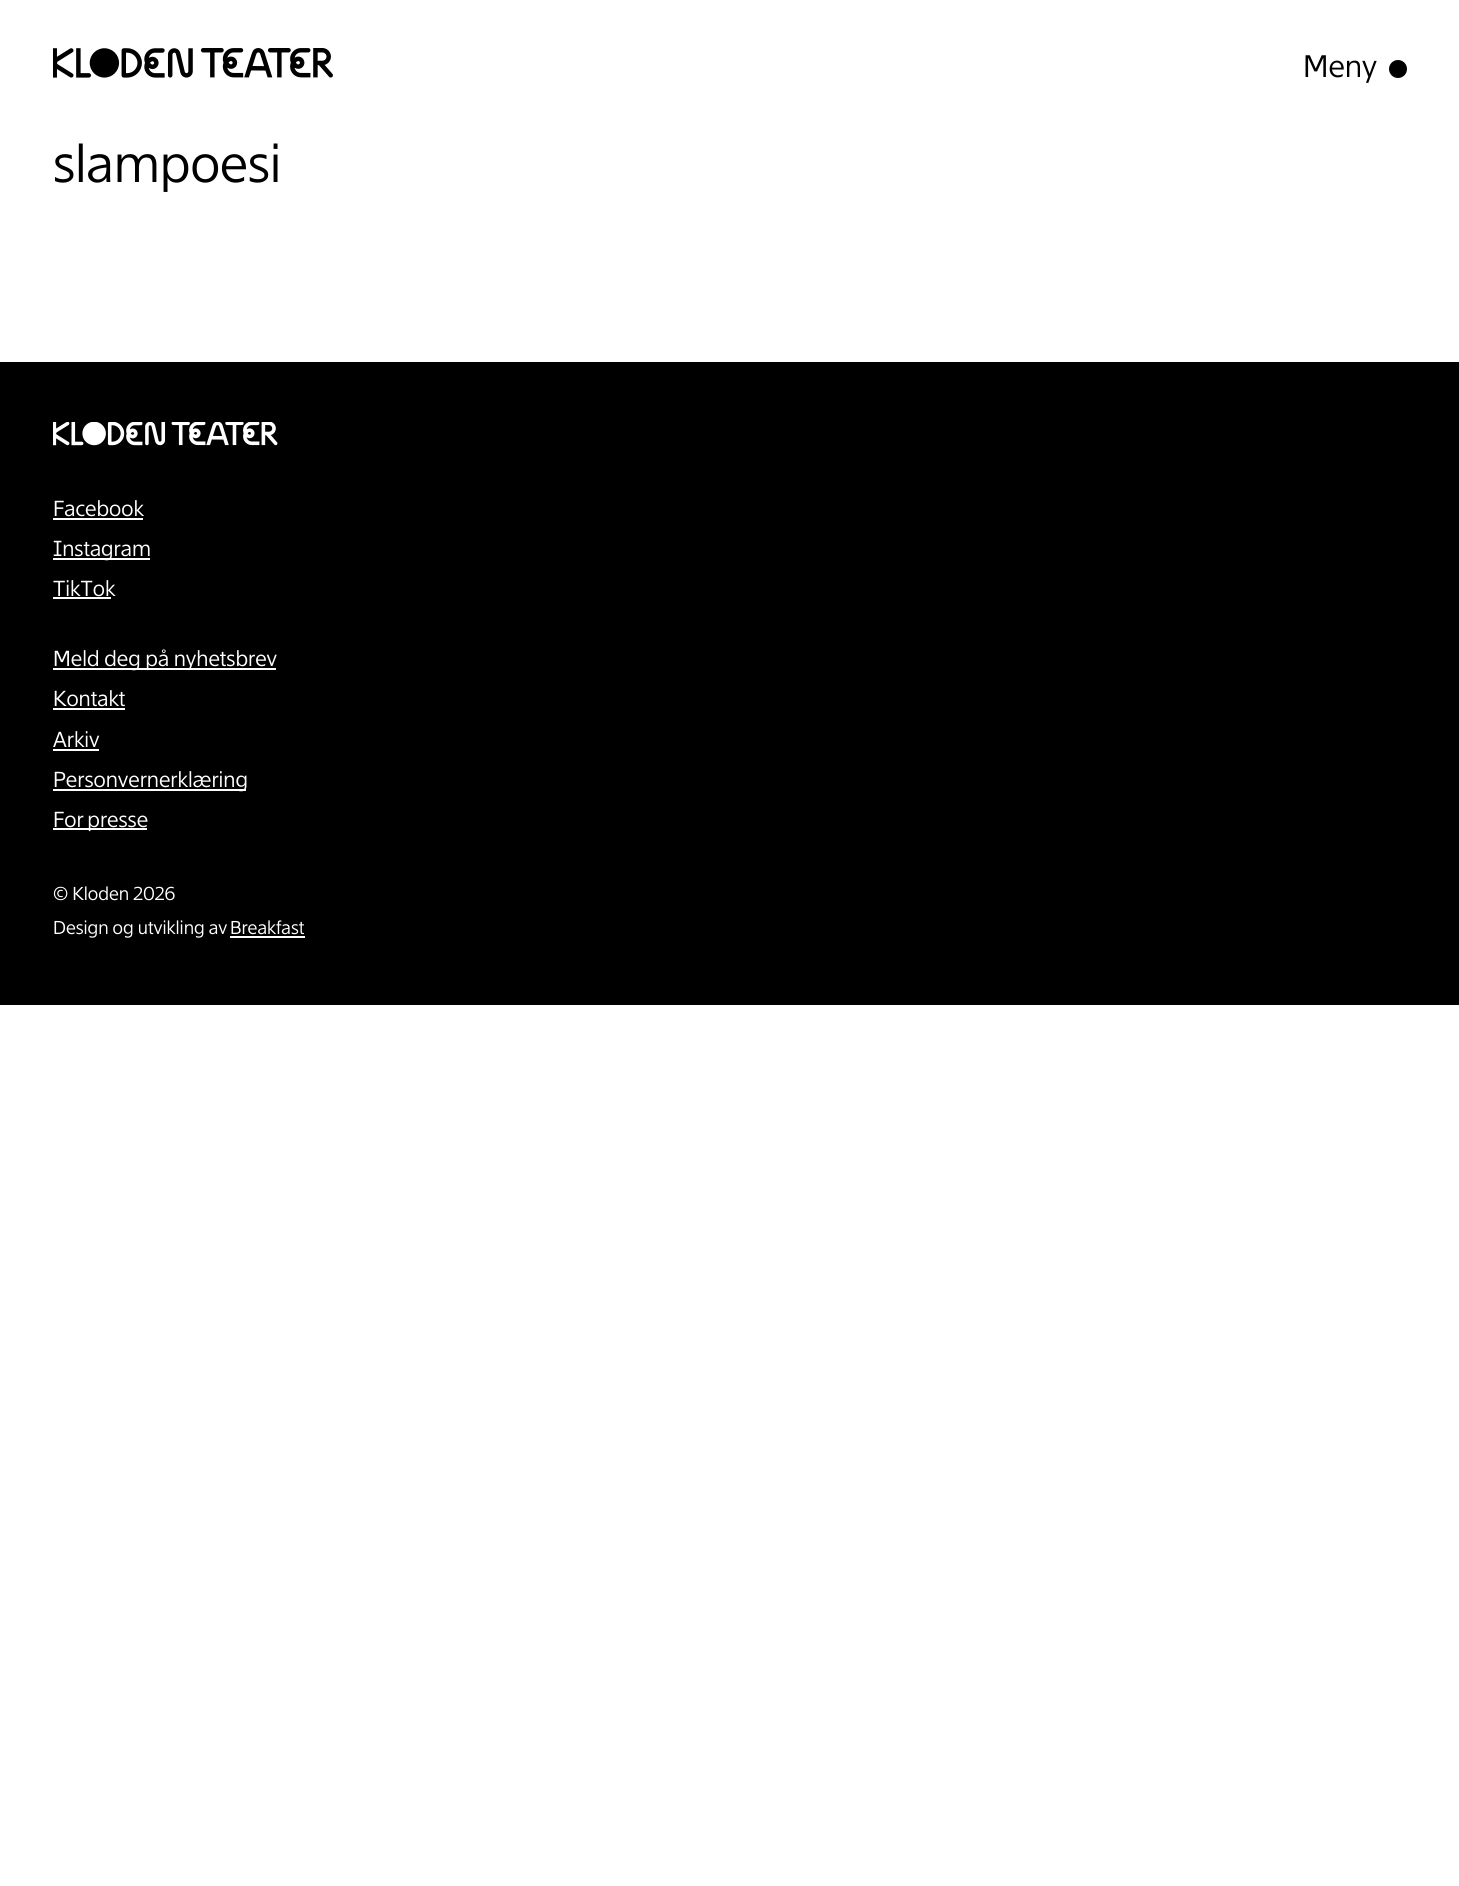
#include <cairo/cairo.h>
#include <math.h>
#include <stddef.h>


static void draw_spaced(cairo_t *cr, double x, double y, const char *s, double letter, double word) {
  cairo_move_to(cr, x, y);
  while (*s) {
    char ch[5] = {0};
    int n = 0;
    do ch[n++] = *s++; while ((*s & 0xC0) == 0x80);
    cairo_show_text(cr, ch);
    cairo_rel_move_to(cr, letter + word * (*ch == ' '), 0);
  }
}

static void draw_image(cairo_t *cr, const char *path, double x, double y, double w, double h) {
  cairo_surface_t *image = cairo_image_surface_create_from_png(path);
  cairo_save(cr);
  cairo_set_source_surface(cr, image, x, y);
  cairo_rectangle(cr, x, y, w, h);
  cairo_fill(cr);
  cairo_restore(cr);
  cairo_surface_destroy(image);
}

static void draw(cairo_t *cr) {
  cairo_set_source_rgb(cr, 1, 1, 1);
  cairo_paint(cr);
  draw_image(cr, "images/1.png", 53, 48, 280, 30);
  cairo_set_source_rgb(cr, 0, 0, 0);
  cairo_arc(cr, 1398, 69, 9, 0, 2 * M_PI);
  cairo_fill(cr);
  cairo_rectangle(cr, 0, 362, 1459, 643);
  cairo_fill(cr);
  draw_image(cr, "images/2.png", 53, 422, 225, 24);
  cairo_set_source_rgb(cr, 1, 1, 1);
  cairo_rectangle(cr, 53, 518, 90, 2);
  cairo_fill(cr);
  cairo_rectangle(cr, 53, 558, 97, 2);
  cairo_fill(cr);
  cairo_rectangle(cr, 53, 597, 58, 2);
  cairo_fill(cr);
  cairo_rectangle(cr, 53, 668, 223, 2);
  cairo_fill(cr);
  cairo_rectangle(cr, 53, 708, 72, 2);
  cairo_fill(cr);
  cairo_rectangle(cr, 53, 749, 46, 2);
  cairo_fill(cr);
  cairo_rectangle(cr, 53, 789, 193, 2);
  cairo_fill(cr);
  cairo_rectangle(cr, 53, 828, 94, 2);
  cairo_fill(cr);
  cairo_rectangle(cr, 230, 936, 75, 2);
  cairo_fill(cr);
  cairo_select_font_face(cr, "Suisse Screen", CAIRO_FONT_SLANT_NORMAL, CAIRO_FONT_WEIGHT_NORMAL);
  cairo_set_font_size(cr, 30);
  cairo_set_source_rgb(cr, 0, 0, 0);
  cairo_move_to(cr, 1303, 77);
  cairo_show_text(cr, "Meny");
  cairo_set_font_size(cr, 51);
  cairo_move_to(cr, 53, 182);
  cairo_show_text(cr, "slampoesi");
  cairo_set_font_size(cr, 21);
  cairo_set_source_rgb(cr, 1, 1, 1);
  cairo_move_to(cr, 53, 516);
  cairo_show_text(cr, "Facebook");
  cairo_move_to(cr, 53, 556);
  cairo_show_text(cr, "Instagram");
  cairo_move_to(cr, 53, 596);
  cairo_show_text(cr, "TikTok");
  cairo_move_to(cr, 53, 666);
  cairo_show_text(cr, "Meld deg på nyhetsbrev");
  cairo_move_to(cr, 53, 706);
  cairo_show_text(cr, "Kontakt");
  cairo_move_to(cr, 53, 747);
  cairo_show_text(cr, "Arkiv");
  cairo_move_to(cr, 53, 787);
  cairo_show_text(cr, "Personvernerklæring");
  draw_spaced(cr, 53, 827, "For presse", 0, -1);
  cairo_set_font_size(cr, 18);
  cairo_move_to(cr, 53, 900);
  cairo_show_text(cr, "© Kloden 2026");
  cairo_move_to(cr, 53, 934);
  cairo_show_text(cr, "Design og utvikling av");
  cairo_move_to(cr, 230, 934);
  cairo_show_text(cr, "Breakfast");
}

int main(void) {
  cairo_surface_t *surface = cairo_image_surface_create(CAIRO_FORMAT_RGB24, 1459, 1886);
  cairo_t *cr = cairo_create(surface);
  cairo_font_options_t *options = cairo_font_options_create();
  cairo_font_options_set_hint_metrics(options, CAIRO_HINT_METRICS_OFF);
  cairo_font_options_set_hint_style(options, CAIRO_HINT_STYLE_NONE);
  cairo_set_font_options(cr, options);
  cairo_set_miter_limit(cr, 4);
  draw(cr);
  cairo_surface_write_to_png(surface, "out.png");
  cairo_font_options_destroy(options);
  cairo_destroy(cr);
  cairo_surface_destroy(surface);
  return 0;
}
